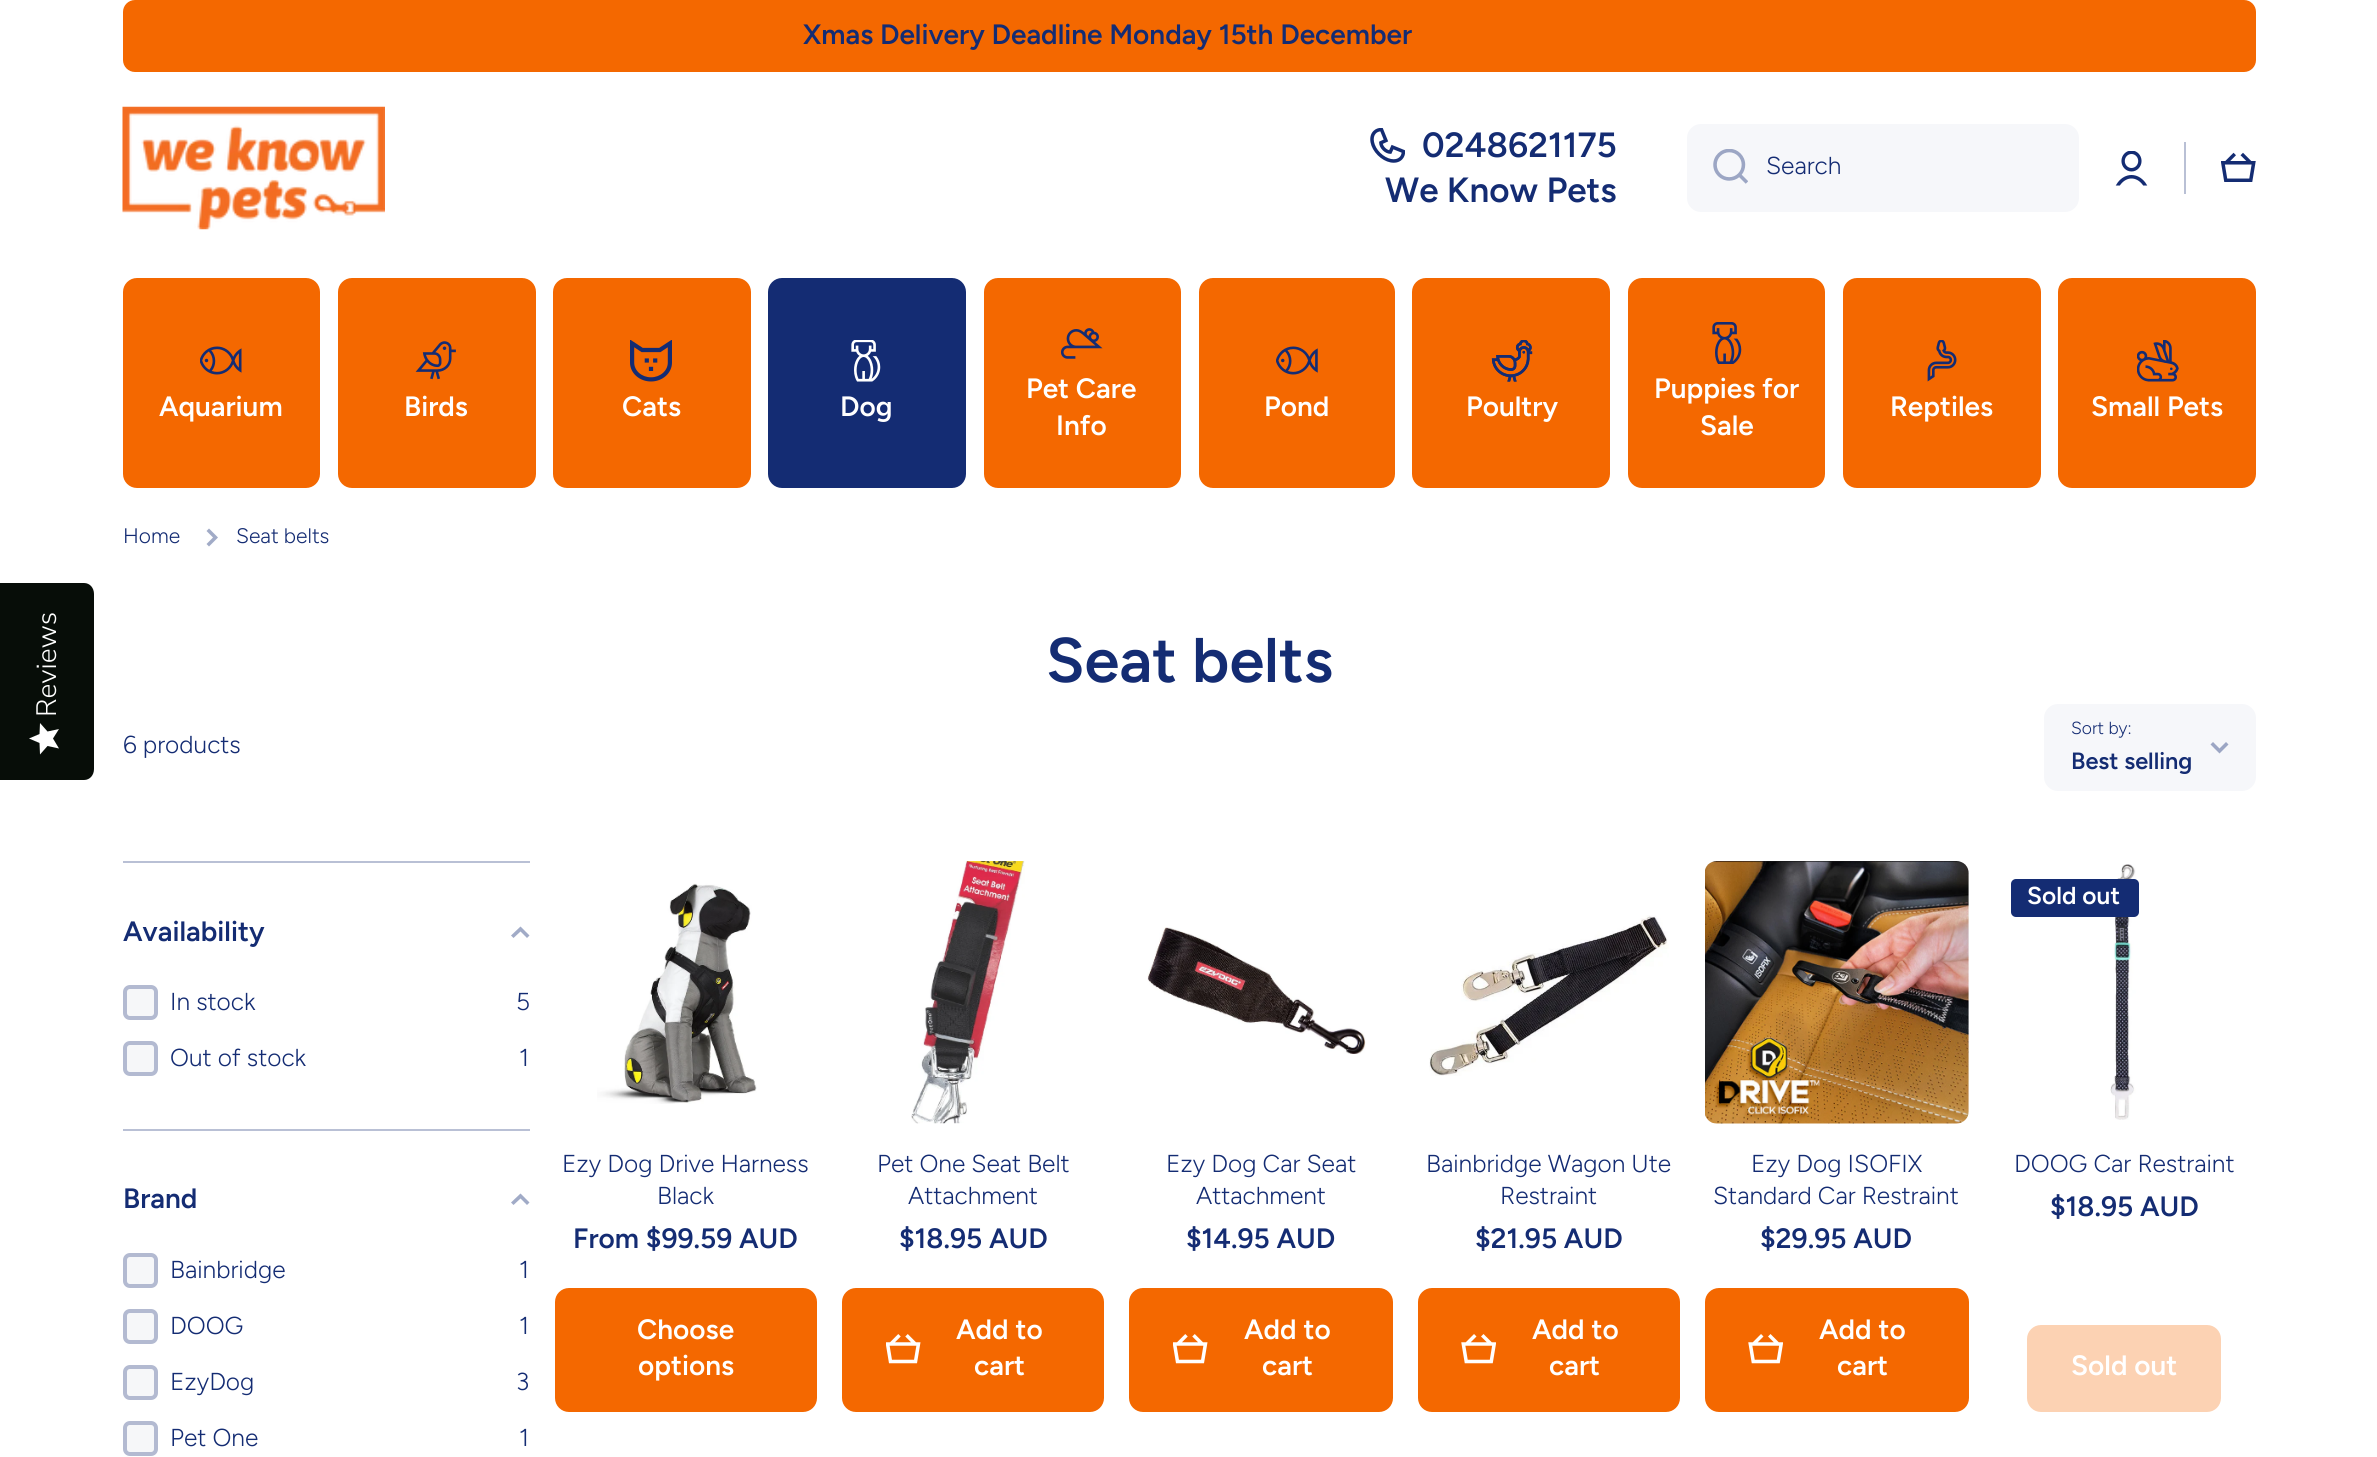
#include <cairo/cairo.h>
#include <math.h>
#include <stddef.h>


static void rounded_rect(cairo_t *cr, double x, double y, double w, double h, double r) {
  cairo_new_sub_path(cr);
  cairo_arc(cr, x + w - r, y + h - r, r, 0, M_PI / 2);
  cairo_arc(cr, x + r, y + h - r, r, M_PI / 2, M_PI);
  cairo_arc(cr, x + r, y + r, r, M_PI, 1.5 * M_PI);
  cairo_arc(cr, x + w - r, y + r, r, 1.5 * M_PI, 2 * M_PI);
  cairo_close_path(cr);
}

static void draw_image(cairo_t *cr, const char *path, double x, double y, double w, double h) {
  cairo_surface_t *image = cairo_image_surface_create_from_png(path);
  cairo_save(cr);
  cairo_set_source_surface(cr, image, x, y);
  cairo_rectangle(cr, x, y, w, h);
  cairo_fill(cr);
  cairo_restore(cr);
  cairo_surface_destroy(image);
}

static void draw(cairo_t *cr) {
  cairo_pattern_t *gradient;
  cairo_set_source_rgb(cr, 1, 1, 1);
  cairo_paint(cr);
  cairo_set_source_rgb(cr, 244 / 255.0, 104 / 255.0, 0);
  rounded_rect(cr, 123, 0, 2133, 72, 12);
  cairo_fill(cr);
  draw_image(cr, "images/1.png", 122, 106, 263, 124);
  draw_image(cr, "images/2.png", 1370, 128, 35, 35);
  cairo_set_source_rgb(cr, 246 / 255.0, 247 / 255.0, 250 / 255.0);
  rounded_rect(cr, 1687, 124, 392, 88, 14);
  cairo_fill(cr);
  draw_image(cr, "images/3.png", 1713, 149, 35, 35);
  draw_image(cr, "images/4.png", 2115, 151, 33, 35);
  cairo_set_source_rgb(cr, 185 / 255.0, 192 / 255.0, 213 / 255.0);
  cairo_rectangle(cr, 2184, 142, 2, 52);
  cairo_fill(cr);
  draw_image(cr, "images/5.png", 2221, 152, 35, 30);
  cairo_set_source_rgb(cr, 244 / 255.0, 104 / 255.0, 0);
  rounded_rect(cr, 123, 278, 197, 210, 14);
  cairo_fill(cr);
  draw_image(cr, "images/6.png", 200, 346, 42, 29);
  rounded_rect(cr, 338, 278, 198, 210, 14);
  cairo_fill(cr);
  draw_image(cr, "images/7.png", 415, 341, 41, 39);
  rounded_rect(cr, 553, 278, 198, 210, 14);
  cairo_fill(cr);
  draw_image(cr, "images/8.png", 630, 340, 42, 42);
  cairo_set_source_rgb(cr, 20 / 255.0, 44 / 255.0, 115 / 255.0);
  rounded_rect(cr, 768, 278, 198, 210, 14);
  cairo_fill(cr);
  draw_image(cr, "images/9.png", 851, 340, 30, 42);
  cairo_set_source_rgb(cr, 244 / 255.0, 104 / 255.0, 0);
  rounded_rect(cr, 984, 278, 197, 210, 14);
  cairo_fill(cr);
  draw_image(cr, "images/10.png", 1061, 328, 42, 31);
  rounded_rect(cr, 1199, 278, 196, 210, 14);
  cairo_fill(cr);
  draw_image(cr, "images/11.png", 1276, 346, 42, 29);
  rounded_rect(cr, 1412, 278, 198, 210, 14);
  cairo_fill(cr);
  draw_image(cr, "images/12.png", 1491, 340, 42, 42);
  rounded_rect(cr, 1628, 278, 197, 210, 14);
  cairo_fill(cr);
  draw_image(cr, "images/13.png", 1712, 322, 30, 42);
  rounded_rect(cr, 1843, 278, 198, 210, 14);
  cairo_fill(cr);
  draw_image(cr, "images/14.png", 1927, 340, 30, 42);
  rounded_rect(cr, 2058, 278, 198, 210, 14);
  cairo_fill(cr);
  draw_image(cr, "images/15.png", 2137, 340, 42, 42);
  cairo_set_source_rgb(cr, 7 / 255.0, 13 / 255.0, 8 / 255.0);
  cairo_new_path(cr);
  cairo_move_to(cr, 0, 780);
  cairo_line_to(cr, 0, 583);
  cairo_line_to(cr, 84, 583);
  cairo_curve_to(cr, 90, 583, 94, 588, 94, 594);
  cairo_line_to(cr, 94, 769);
  cairo_curve_to(cr, 94, 775, 90, 780, 84, 780);
  cairo_close_path(cr);
  cairo_fill(cr);
  gradient = cairo_pattern_create_linear(29, 754, 29, 723);
  cairo_pattern_add_color_stop_rgba(gradient, 1, 254 / 255.0, 254 / 255.0, 254 / 255.0, 1);
  cairo_pattern_add_color_stop_rgba(gradient, 1, 234 / 255.0, 234 / 255.0, 234 / 255.0, 1);
  cairo_set_source(cr, gradient);
  cairo_pattern_destroy(gradient);
  cairo_new_path(cr);
  cairo_move_to(cr, 53, 738.5);
  cairo_line_to(cr, 59, 729);
  cairo_line_to(cr, 47.5, 731.5);
  cairo_line_to(cr, 40, 723);
  cairo_line_to(cr, 39.5, 734);
  cairo_line_to(cr, 29, 738.5);
  cairo_line_to(cr, 39.5, 743);
  cairo_line_to(cr, 40, 754.5);
  cairo_line_to(cr, 47.5, 746);
  cairo_line_to(cr, 59, 748.5);
  cairo_close_path(cr);
  cairo_fill(cr);
  cairo_set_source_rgb(cr, 161 / 255.0, 171 / 255.0, 199 / 255.0);
  cairo_set_fill_rule(cr, CAIRO_FILL_RULE_EVEN_ODD);
  cairo_new_path(cr);
  cairo_move_to(cr, 213, 537.5);
  cairo_line_to(cr, 206.5, 531);
  cairo_line_to(cr, 209, 528.5);
  cairo_line_to(cr, 218, 537.5);
  cairo_line_to(cr, 209, 546.5);
  cairo_line_to(cr, 206.5, 544);
  cairo_close_path(cr);
  cairo_fill(cr);
  cairo_set_source_rgb(cr, 246 / 255.0, 247 / 255.0, 250 / 255.0);
  rounded_rect(cr, 2044, 704, 212, 87, 14);
  cairo_fill(cr);
  cairo_set_source_rgb(cr, 156 / 255.0, 166 / 255.0, 196 / 255.0);
  cairo_new_path(cr);
  cairo_move_to(cr, 2219.5, 748.5);
  cairo_line_to(cr, 2213, 742);
  cairo_line_to(cr, 2210.5, 744.5);
  cairo_line_to(cr, 2219.5, 753.5);
  cairo_line_to(cr, 2228.5, 744.5);
  cairo_line_to(cr, 2226, 742);
  cairo_close_path(cr);
  cairo_fill(cr);
  cairo_set_source_rgb(cr, 185 / 255.0, 192 / 255.0, 213 / 255.0);
  cairo_rectangle(cr, 123, 861, 407, 2);
  cairo_fill(cr);
  cairo_set_source_rgb(cr, 161 / 255.0, 171 / 255.0, 199 / 255.0);
  cairo_new_path(cr);
  cairo_move_to(cr, 520.5, 931.5);
  cairo_line_to(cr, 513.5, 938);
  cairo_line_to(cr, 511, 935.5);
  cairo_line_to(cr, 520.5, 926.5);
  cairo_line_to(cr, 529.5, 935.5);
  cairo_line_to(cr, 527, 938);
  cairo_close_path(cr);
  cairo_fill(cr);
  cairo_set_source_rgb(cr, 246 / 255.0, 247 / 255.0, 249 / 255.0);
  rounded_rect(cr, 123, 985, 35, 35, 7);
  cairo_fill(cr);
  rounded_rect(cr, 125, 987, 31, 31, 5);
  cairo_set_source_rgba(cr, 20 / 255.0, 44 / 255.0, 115 / 255.0, 0.3);
  cairo_set_line_width(cr, 4);
  cairo_stroke(cr);
  cairo_set_source_rgb(cr, 246 / 255.0, 247 / 255.0, 249 / 255.0);
  rounded_rect(cr, 123, 1041, 35, 35, 7);
  cairo_fill(cr);
  rounded_rect(cr, 125, 1043, 31, 31, 5);
  cairo_set_source_rgba(cr, 20 / 255.0, 44 / 255.0, 115 / 255.0, 0.3);
  cairo_stroke(cr);
  cairo_set_source_rgb(cr, 185 / 255.0, 192 / 255.0, 213 / 255.0);
  cairo_rectangle(cr, 123, 1129, 407, 2);
  cairo_fill(cr);
  cairo_set_source_rgb(cr, 161 / 255.0, 171 / 255.0, 199 / 255.0);
  cairo_new_path(cr);
  cairo_move_to(cr, 520.5, 1198.5);
  cairo_line_to(cr, 513.5, 1205);
  cairo_line_to(cr, 511, 1202.5);
  cairo_line_to(cr, 520.5, 1193.5);
  cairo_line_to(cr, 529.5, 1202.5);
  cairo_line_to(cr, 527, 1205);
  cairo_close_path(cr);
  cairo_fill(cr);
  cairo_set_source_rgb(cr, 246 / 255.0, 247 / 255.0, 249 / 255.0);
  rounded_rect(cr, 123, 1253, 35, 35, 7);
  cairo_fill(cr);
  rounded_rect(cr, 125, 1255, 31, 31, 5);
  cairo_set_source_rgba(cr, 20 / 255.0, 44 / 255.0, 115 / 255.0, 0.3);
  cairo_stroke(cr);
  cairo_set_source_rgb(cr, 246 / 255.0, 247 / 255.0, 249 / 255.0);
  rounded_rect(cr, 123, 1309, 35, 35, 7);
  cairo_fill(cr);
  rounded_rect(cr, 125, 1311, 31, 31, 5);
  cairo_set_source_rgba(cr, 20 / 255.0, 44 / 255.0, 115 / 255.0, 0.3);
  cairo_stroke(cr);
  cairo_set_source_rgb(cr, 246 / 255.0, 247 / 255.0, 249 / 255.0);
  rounded_rect(cr, 123, 1365, 35, 35, 7);
  cairo_fill(cr);
  rounded_rect(cr, 125, 1367, 31, 31, 5);
  cairo_set_source_rgba(cr, 20 / 255.0, 44 / 255.0, 115 / 255.0, 0.3);
  cairo_stroke(cr);
  cairo_set_source_rgb(cr, 246 / 255.0, 247 / 255.0, 249 / 255.0);
  rounded_rect(cr, 123, 1421, 35, 35, 7);
  cairo_fill(cr);
  rounded_rect(cr, 125, 1423, 31, 31, 5);
  cairo_set_source_rgba(cr, 20 / 255.0, 44 / 255.0, 115 / 255.0, 0.3);
  cairo_stroke(cr);
  draw_image(cr, "images/16.png", 597, 883, 160, 221);
  cairo_set_source_rgb(cr, 244 / 255.0, 104 / 255.0, 0);
  rounded_rect(cr, 555, 1288, 262, 124, 14);
  cairo_fill(cr);
  draw_image(cr, "images/17.png", 911, 861, 114, 263);
  rounded_rect(cr, 842, 1288, 262, 124, 14);
  cairo_fill(cr);
  draw_image(cr, "images/18.png", 886, 1334, 35, 30);
  draw_image(cr, "images/19.png", 1147, 927, 219, 127);
  rounded_rect(cr, 1129, 1288, 264, 124, 14);
  cairo_fill(cr);
  draw_image(cr, "images/18.png", 1173, 1334, 35, 30);
  draw_image(cr, "images/20.png", 1429, 915, 240, 161);
  rounded_rect(cr, 1418, 1288, 262, 124, 14);
  cairo_fill(cr);
  draw_image(cr, "images/21.png", 1461, 1334, 35, 30);
  draw_image(cr, "images/22.png", 1705, 861, 264, 263);
  rounded_rect(cr, 1705, 1288, 264, 124, 14);
  cairo_fill(cr);
  draw_image(cr, "images/21.png", 1748, 1334, 35, 30);
  draw_image(cr, "images/23.png", 2110, 864, 26, 256);
  cairo_set_source_rgb(cr, 20 / 255.0, 44 / 255.0, 115 / 255.0);
  rounded_rect(cr, 2011, 879, 128, 38, 5);
  cairo_fill(cr);
  cairo_set_source_rgb(cr, 252 / 255.0, 210 / 255.0, 179 / 255.0);
  rounded_rect(cr, 2027, 1325, 194, 87, 14);
  cairo_fill(cr);
  cairo_select_font_face(cr, "Figtree SemiBold", CAIRO_FONT_SLANT_NORMAL, CAIRO_FONT_WEIGHT_NORMAL);
  cairo_set_font_size(cr, 28);
  cairo_set_source_rgb(cr, 20 / 255.0, 44 / 255.0, 115 / 255.0);
  cairo_move_to(cr, 803, 44);
  cairo_show_text(cr, "Xmas Delivery Deadline Monday 15th December");
  cairo_set_font_size(cr, 35);
  cairo_move_to(cr, 1422, 157);
  cairo_show_text(cr, "0248621175");
  cairo_move_to(cr, 1385, 202);
  cairo_show_text(cr, "We Know Pets");
  cairo_select_font_face(cr, "Figtree Light", CAIRO_FONT_SLANT_NORMAL, CAIRO_FONT_WEIGHT_NORMAL);
  cairo_set_font_size(cr, 24.5);
  cairo_move_to(cr, 1766, 174);
  cairo_show_text(cr, "Search");
  cairo_select_font_face(cr, "Figtree SemiBold", CAIRO_FONT_SLANT_NORMAL, CAIRO_FONT_WEIGHT_NORMAL);
  cairo_set_font_size(cr, 28);
  cairo_set_source_rgb(cr, 1, 1, 1);
  cairo_move_to(cr, 159, 416);
  cairo_show_text(cr, "Aquarium");
  cairo_move_to(cr, 404, 416);
  cairo_show_text(cr, "Birds");
  cairo_move_to(cr, 622, 416);
  cairo_show_text(cr, "Cats");
  cairo_move_to(cr, 840, 416);
  cairo_show_text(cr, "Dog");
  cairo_move_to(cr, 1026, 398);
  cairo_show_text(cr, "Pet Care");
  cairo_move_to(cr, 1056, 435);
  cairo_show_text(cr, "Info");
  cairo_move_to(cr, 1264, 416);
  cairo_show_text(cr, "Pond");
  cairo_move_to(cr, 1466, 416);
  cairo_show_text(cr, "Poultry");
  cairo_move_to(cr, 1654, 398);
  cairo_show_text(cr, "Puppies for");
  cairo_move_to(cr, 1700, 435);
  cairo_show_text(cr, "Sale");
  cairo_move_to(cr, 1890, 416);
  cairo_show_text(cr, "Reptiles");
  cairo_move_to(cr, 2091, 416);
  cairo_show_text(cr, "Small Pets");
  cairo_select_font_face(cr, "Nunito Sans Light", CAIRO_FONT_SLANT_NORMAL, CAIRO_FONT_WEIGHT_NORMAL);
  cairo_save(cr);
  cairo_translate(cr, 56, 717);
  cairo_rotate(cr, -90 * M_PI / 180);
  cairo_move_to(cr, 0, 0);
  cairo_show_text(cr, "Reviews");
  cairo_restore(cr);
  cairo_select_font_face(cr, "Figtree Light", CAIRO_FONT_SLANT_NORMAL, CAIRO_FONT_WEIGHT_NORMAL);
  cairo_set_font_size(cr, 21);
  cairo_set_source_rgb(cr, 20 / 255.0, 44 / 255.0, 115 / 255.0);
  cairo_move_to(cr, 123, 543);
  cairo_show_text(cr, "Home");
  cairo_move_to(cr, 236, 543);
  cairo_show_text(cr, "Seat belts");
  cairo_select_font_face(cr, "Figtree SemiBold", CAIRO_FONT_SLANT_NORMAL, CAIRO_FONT_WEIGHT_NORMAL);
  cairo_set_font_size(cr, 63);
  cairo_move_to(cr, 1046, 682);
  cairo_show_text(cr, "Seat belts");
  cairo_select_font_face(cr, "Figtree Light", CAIRO_FONT_SLANT_NORMAL, CAIRO_FONT_WEIGHT_NORMAL);
  cairo_set_font_size(cr, 24.5);
  cairo_move_to(cr, 123, 753);
  cairo_show_text(cr, "6 products");
  cairo_set_font_size(cr, 17.5);
  cairo_move_to(cr, 2071, 734);
  cairo_show_text(cr, "Sort by:");
  cairo_select_font_face(cr, "Figtree SemiBold", CAIRO_FONT_SLANT_NORMAL, CAIRO_FONT_WEIGHT_NORMAL);
  cairo_set_font_size(cr, 23.5);
  cairo_move_to(cr, 2071, 769);
  cairo_show_text(cr, "Best selling");
  cairo_set_font_size(cr, 28);
  cairo_move_to(cr, 123, 941);
  cairo_show_text(cr, "Availability");
  cairo_select_font_face(cr, "Figtree Light", CAIRO_FONT_SLANT_NORMAL, CAIRO_FONT_WEIGHT_NORMAL);
  cairo_set_font_size(cr, 24.5);
  cairo_move_to(cr, 170, 1010);
  cairo_show_text(cr, "In stock");
  cairo_move_to(cr, 516, 1010);
  cairo_show_text(cr, "5");
  cairo_move_to(cr, 170, 1066);
  cairo_show_text(cr, "Out of stock");
  cairo_move_to(cr, 519, 1066);
  cairo_show_text(cr, "1");
  cairo_select_font_face(cr, "Figtree SemiBold", CAIRO_FONT_SLANT_NORMAL, CAIRO_FONT_WEIGHT_NORMAL);
  cairo_set_font_size(cr, 28);
  cairo_move_to(cr, 123, 1208);
  cairo_show_text(cr, "Brand");
  cairo_select_font_face(cr, "Figtree Light", CAIRO_FONT_SLANT_NORMAL, CAIRO_FONT_WEIGHT_NORMAL);
  cairo_set_font_size(cr, 24.5);
  cairo_move_to(cr, 170, 1278);
  cairo_show_text(cr, "Bainbridge");
  cairo_move_to(cr, 519, 1278);
  cairo_show_text(cr, "1");
  cairo_move_to(cr, 170, 1334);
  cairo_show_text(cr, "DOOG");
  cairo_move_to(cr, 519, 1334);
  cairo_show_text(cr, "1");
  cairo_move_to(cr, 170, 1390);
  cairo_show_text(cr, "EzyDog");
  cairo_move_to(cr, 516, 1390);
  cairo_show_text(cr, "3");
  cairo_move_to(cr, 170, 1446);
  cairo_show_text(cr, "Pet One");
  cairo_move_to(cr, 519, 1446);
  cairo_show_text(cr, "1");
  cairo_move_to(cr, 562, 1172);
  cairo_show_text(cr, "Ezy Dog Drive Harness");
  cairo_move_to(cr, 657, 1204);
  cairo_show_text(cr, "Black");
  cairo_select_font_face(cr, "Figtree SemiBold", CAIRO_FONT_SLANT_NORMAL, CAIRO_FONT_WEIGHT_NORMAL);
  cairo_set_font_size(cr, 28);
  cairo_move_to(cr, 573, 1248);
  cairo_show_text(cr, "From $99.59 AUD");
  cairo_set_source_rgb(cr, 1, 1, 1);
  cairo_move_to(cr, 637, 1339);
  cairo_show_text(cr, "Choose");
  cairo_move_to(cr, 638, 1375);
  cairo_show_text(cr, "options");
  cairo_select_font_face(cr, "Figtree Light", CAIRO_FONT_SLANT_NORMAL, CAIRO_FONT_WEIGHT_NORMAL);
  cairo_set_font_size(cr, 24.5);
  cairo_set_source_rgb(cr, 20 / 255.0, 44 / 255.0, 115 / 255.0);
  cairo_move_to(cr, 877, 1172);
  cairo_show_text(cr, "Pet One Seat Belt");
  cairo_move_to(cr, 908, 1204);
  cairo_show_text(cr, "Attachment");
  cairo_select_font_face(cr, "Figtree SemiBold", CAIRO_FONT_SLANT_NORMAL, CAIRO_FONT_WEIGHT_NORMAL);
  cairo_set_font_size(cr, 28);
  cairo_move_to(cr, 899, 1248);
  cairo_show_text(cr, "$18.95 AUD");
  cairo_set_source_rgb(cr, 1, 1, 1);
  cairo_move_to(cr, 956, 1339);
  cairo_show_text(cr, "Add to");
  cairo_move_to(cr, 974, 1375);
  cairo_show_text(cr, "cart");
  cairo_select_font_face(cr, "Figtree Light", CAIRO_FONT_SLANT_NORMAL, CAIRO_FONT_WEIGHT_NORMAL);
  cairo_set_font_size(cr, 24.5);
  cairo_set_source_rgb(cr, 20 / 255.0, 44 / 255.0, 115 / 255.0);
  cairo_move_to(cr, 1166, 1172);
  cairo_show_text(cr, "Ezy Dog Car Seat");
  cairo_move_to(cr, 1196, 1204);
  cairo_show_text(cr, "Attachment");
  cairo_select_font_face(cr, "Figtree SemiBold", CAIRO_FONT_SLANT_NORMAL, CAIRO_FONT_WEIGHT_NORMAL);
  cairo_set_font_size(cr, 28);
  cairo_move_to(cr, 1186, 1248);
  cairo_show_text(cr, "$14.95 AUD");
  cairo_set_source_rgb(cr, 1, 1, 1);
  cairo_move_to(cr, 1244, 1339);
  cairo_show_text(cr, "Add to");
  cairo_move_to(cr, 1262, 1375);
  cairo_show_text(cr, "cart");
  cairo_select_font_face(cr, "Figtree Light", CAIRO_FONT_SLANT_NORMAL, CAIRO_FONT_WEIGHT_NORMAL);
  cairo_set_font_size(cr, 24.5);
  cairo_set_source_rgb(cr, 20 / 255.0, 44 / 255.0, 115 / 255.0);
  cairo_move_to(cr, 1426, 1172);
  cairo_show_text(cr, "Bainbridge Wagon Ute");
  cairo_move_to(cr, 1500, 1204);
  cairo_show_text(cr, "Restraint");
  cairo_select_font_face(cr, "Figtree SemiBold", CAIRO_FONT_SLANT_NORMAL, CAIRO_FONT_WEIGHT_NORMAL);
  cairo_set_font_size(cr, 28);
  cairo_move_to(cr, 1475, 1248);
  cairo_show_text(cr, "$21.95 AUD");
  cairo_set_source_rgb(cr, 1, 1, 1);
  cairo_move_to(cr, 1532, 1339);
  cairo_show_text(cr, "Add to");
  cairo_move_to(cr, 1549, 1375);
  cairo_show_text(cr, "cart");
  cairo_select_font_face(cr, "Figtree Light", CAIRO_FONT_SLANT_NORMAL, CAIRO_FONT_WEIGHT_NORMAL);
  cairo_set_font_size(cr, 24.5);
  cairo_set_source_rgb(cr, 20 / 255.0, 44 / 255.0, 115 / 255.0);
  cairo_move_to(cr, 1751, 1172);
  cairo_show_text(cr, "Ezy Dog ISOFIX");
  cairo_move_to(cr, 1713, 1204);
  cairo_show_text(cr, "Standard Car Restraint");
  cairo_select_font_face(cr, "Figtree SemiBold", CAIRO_FONT_SLANT_NORMAL, CAIRO_FONT_WEIGHT_NORMAL);
  cairo_set_font_size(cr, 28);
  cairo_move_to(cr, 1760, 1248);
  cairo_show_text(cr, "$29.95 AUD");
  cairo_set_source_rgb(cr, 1, 1, 1);
  cairo_move_to(cr, 1819, 1339);
  cairo_show_text(cr, "Add to");
  cairo_move_to(cr, 1837, 1375);
  cairo_show_text(cr, "cart");
  cairo_set_font_size(cr, 24.5);
  cairo_move_to(cr, 2027, 904);
  cairo_show_text(cr, "Sold out");
  cairo_select_font_face(cr, "Figtree Light", CAIRO_FONT_SLANT_NORMAL, CAIRO_FONT_WEIGHT_NORMAL);
  cairo_set_source_rgb(cr, 20 / 255.0, 44 / 255.0, 115 / 255.0);
  cairo_move_to(cr, 2014, 1172);
  cairo_show_text(cr, "DOOG Car Restraint");
  cairo_select_font_face(cr, "Figtree SemiBold", CAIRO_FONT_SLANT_NORMAL, CAIRO_FONT_WEIGHT_NORMAL);
  cairo_set_font_size(cr, 28);
  cairo_move_to(cr, 2050, 1216);
  cairo_show_text(cr, "$18.95 AUD");
  cairo_set_source_rgb(cr, 1, 1, 1);
  cairo_move_to(cr, 2071, 1375);
  cairo_show_text(cr, "Sold out");
}

int main(void) {
  cairo_surface_t *surface = cairo_image_surface_create(CAIRO_FORMAT_RGB24, 2377, 1457);
  cairo_t *cr = cairo_create(surface);
  cairo_font_options_t *options = cairo_font_options_create();
  cairo_font_options_set_hint_metrics(options, CAIRO_HINT_METRICS_OFF);
  cairo_font_options_set_hint_style(options, CAIRO_HINT_STYLE_NONE);
  cairo_set_font_options(cr, options);
  cairo_set_miter_limit(cr, 4);
  draw(cr);
  cairo_surface_write_to_png(surface, "out.png");
  cairo_font_options_destroy(options);
  cairo_destroy(cr);
  cairo_surface_destroy(surface);
  return 0;
}
